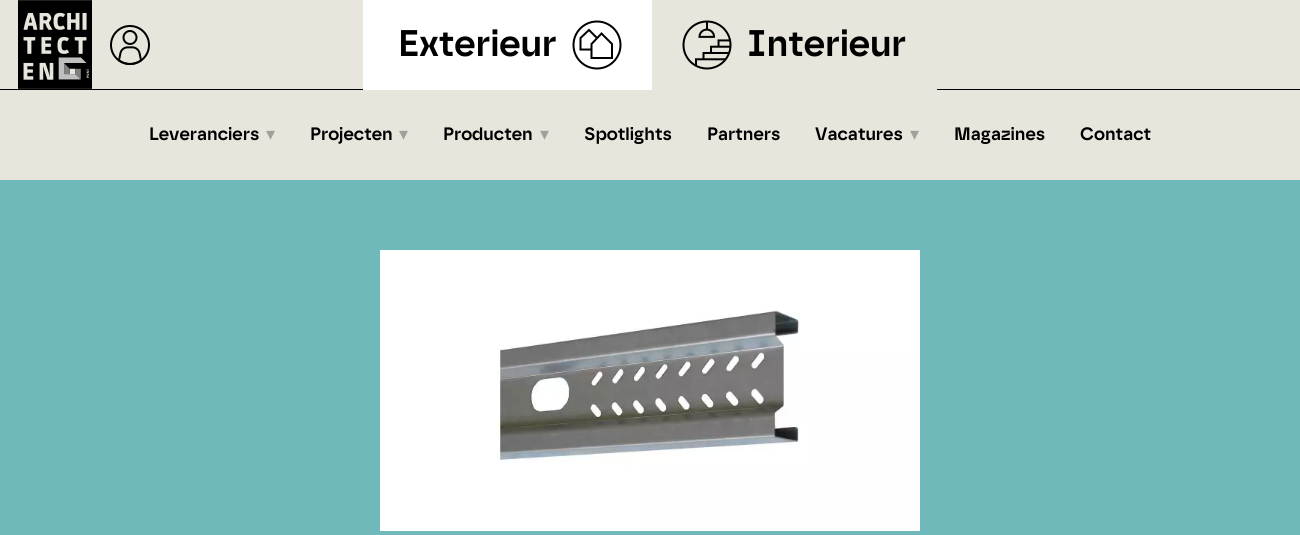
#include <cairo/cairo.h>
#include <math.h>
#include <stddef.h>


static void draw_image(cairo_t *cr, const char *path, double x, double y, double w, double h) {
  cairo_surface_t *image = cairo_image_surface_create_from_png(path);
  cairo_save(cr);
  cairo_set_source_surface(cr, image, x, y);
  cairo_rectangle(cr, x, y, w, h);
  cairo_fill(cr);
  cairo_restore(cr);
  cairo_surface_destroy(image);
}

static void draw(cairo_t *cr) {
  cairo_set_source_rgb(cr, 112 / 255.0, 185 / 255.0, 186 / 255.0);
  cairo_paint(cr);
  cairo_set_source_rgb(cr, 232 / 255.0, 229 / 255.0, 220 / 255.0);
  cairo_rectangle(cr, 0, 0, 1300, 180);
  cairo_fill(cr);
  draw_image(cr, "images/1.png", 18, 0, 74, 89);
  draw_image(cr, "images/2.png", 110, 25, 40, 40);
  cairo_set_source_rgb(cr, 0, 0, 0);
  cairo_rectangle(cr, 0, 89, 1300, 1);
  cairo_fill(cr);
  cairo_set_source_rgb(cr, 1, 1, 1);
  cairo_rectangle(cr, 363, 0, 289, 90);
  cairo_fill(cr);
  cairo_new_path(cr);
  cairo_move_to(cr, 606, 58);
  cairo_line_to(cr, 591.5, 58);
  cairo_line_to(cr, 591.5, 44);
  cairo_line_to(cr, 601.5, 33.5);
  cairo_line_to(cr, 612, 44);
  cairo_line_to(cr, 612, 58);
  cairo_close_path(cr);
  cairo_move_to(cr, 591.5, 49.5);
  cairo_line_to(cr, 580.5, 49.5);
  cairo_line_to(cr, 580.5, 38);
  cairo_line_to(cr, 589, 30);
  cairo_line_to(cr, 597, 38);
  cairo_set_source_rgb(cr, 0, 0, 0);
  cairo_stroke(cr);
  cairo_arc(cr, 597, 45, 23.5, 0, 2 * M_PI);
  cairo_stroke(cr);
  cairo_set_source_rgb(cr, 232 / 255.0, 229 / 255.0, 220 / 255.0);
  cairo_rectangle(cr, 652, 89, 285, 1);
  cairo_fill(cr);
  draw_image(cr, "images/3.png", 682, 20, 50, 50);
  draw_image(cr, "images/4.png", 380, 250, 540, 281);
  cairo_select_font_face(cr, "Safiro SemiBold", CAIRO_FONT_SLANT_NORMAL, CAIRO_FONT_WEIGHT_NORMAL);
  cairo_set_font_size(cr, 37);
  cairo_set_source_rgb(cr, 0, 0, 0);
  cairo_move_to(cr, 398, 56);
  cairo_show_text(cr, "Exterieur");
  cairo_move_to(cr, 747, 56);
  cairo_show_text(cr, "Interieur");
  cairo_set_font_size(cr, 18);
  cairo_move_to(cr, 149, 140);
  cairo_show_text(cr, "Leveranciers");
  cairo_select_font_face(cr, "DejaVu Sans", CAIRO_FONT_SLANT_NORMAL, CAIRO_FONT_WEIGHT_NORMAL);
  cairo_set_source_rgb(cr, 162 / 255.0, 160 / 255.0, 154 / 255.0);
  cairo_move_to(cr, 266, 140);
  cairo_show_text(cr, "▾");
  cairo_select_font_face(cr, "Safiro SemiBold", CAIRO_FONT_SLANT_NORMAL, CAIRO_FONT_WEIGHT_NORMAL);
  cairo_set_source_rgb(cr, 0, 0, 0);
  cairo_move_to(cr, 310, 140);
  cairo_show_text(cr, "Projecten");
  cairo_select_font_face(cr, "DejaVu Sans", CAIRO_FONT_SLANT_NORMAL, CAIRO_FONT_WEIGHT_NORMAL);
  cairo_set_source_rgb(cr, 162 / 255.0, 160 / 255.0, 154 / 255.0);
  cairo_move_to(cr, 399, 140);
  cairo_show_text(cr, "▾");
  cairo_select_font_face(cr, "Safiro SemiBold", CAIRO_FONT_SLANT_NORMAL, CAIRO_FONT_WEIGHT_NORMAL);
  cairo_set_source_rgb(cr, 0, 0, 0);
  cairo_move_to(cr, 443, 140);
  cairo_show_text(cr, "Producten");
  cairo_select_font_face(cr, "DejaVu Sans", CAIRO_FONT_SLANT_NORMAL, CAIRO_FONT_WEIGHT_NORMAL);
  cairo_set_source_rgb(cr, 162 / 255.0, 160 / 255.0, 154 / 255.0);
  cairo_move_to(cr, 540, 140);
  cairo_show_text(cr, "▾");
  cairo_select_font_face(cr, "Safiro SemiBold", CAIRO_FONT_SLANT_NORMAL, CAIRO_FONT_WEIGHT_NORMAL);
  cairo_set_source_rgb(cr, 0, 0, 0);
  cairo_move_to(cr, 584, 140);
  cairo_show_text(cr, "Spotlights");
  cairo_move_to(cr, 707, 140);
  cairo_show_text(cr, "Partners");
  cairo_move_to(cr, 815, 140);
  cairo_show_text(cr, "Vacatures");
  cairo_select_font_face(cr, "DejaVu Sans", CAIRO_FONT_SLANT_NORMAL, CAIRO_FONT_WEIGHT_NORMAL);
  cairo_set_source_rgb(cr, 162 / 255.0, 160 / 255.0, 154 / 255.0);
  cairo_move_to(cr, 910, 140);
  cairo_show_text(cr, "▾");
  cairo_select_font_face(cr, "Safiro SemiBold", CAIRO_FONT_SLANT_NORMAL, CAIRO_FONT_WEIGHT_NORMAL);
  cairo_set_source_rgb(cr, 0, 0, 0);
  cairo_move_to(cr, 954, 140);
  cairo_show_text(cr, "Magazines");
  cairo_move_to(cr, 1080, 140);
  cairo_show_text(cr, "Contact");
}

int main(void) {
  cairo_surface_t *surface = cairo_image_surface_create(CAIRO_FORMAT_RGB24, 1300, 535);
  cairo_t *cr = cairo_create(surface);
  cairo_font_options_t *options = cairo_font_options_create();
  cairo_font_options_set_hint_metrics(options, CAIRO_HINT_METRICS_OFF);
  cairo_font_options_set_hint_style(options, CAIRO_HINT_STYLE_NONE);
  cairo_set_font_options(cr, options);
  cairo_set_miter_limit(cr, 4);
  draw(cr);
  cairo_surface_write_to_png(surface, "out.png");
  cairo_font_options_destroy(options);
  cairo_destroy(cr);
  cairo_surface_destroy(surface);
  return 0;
}
